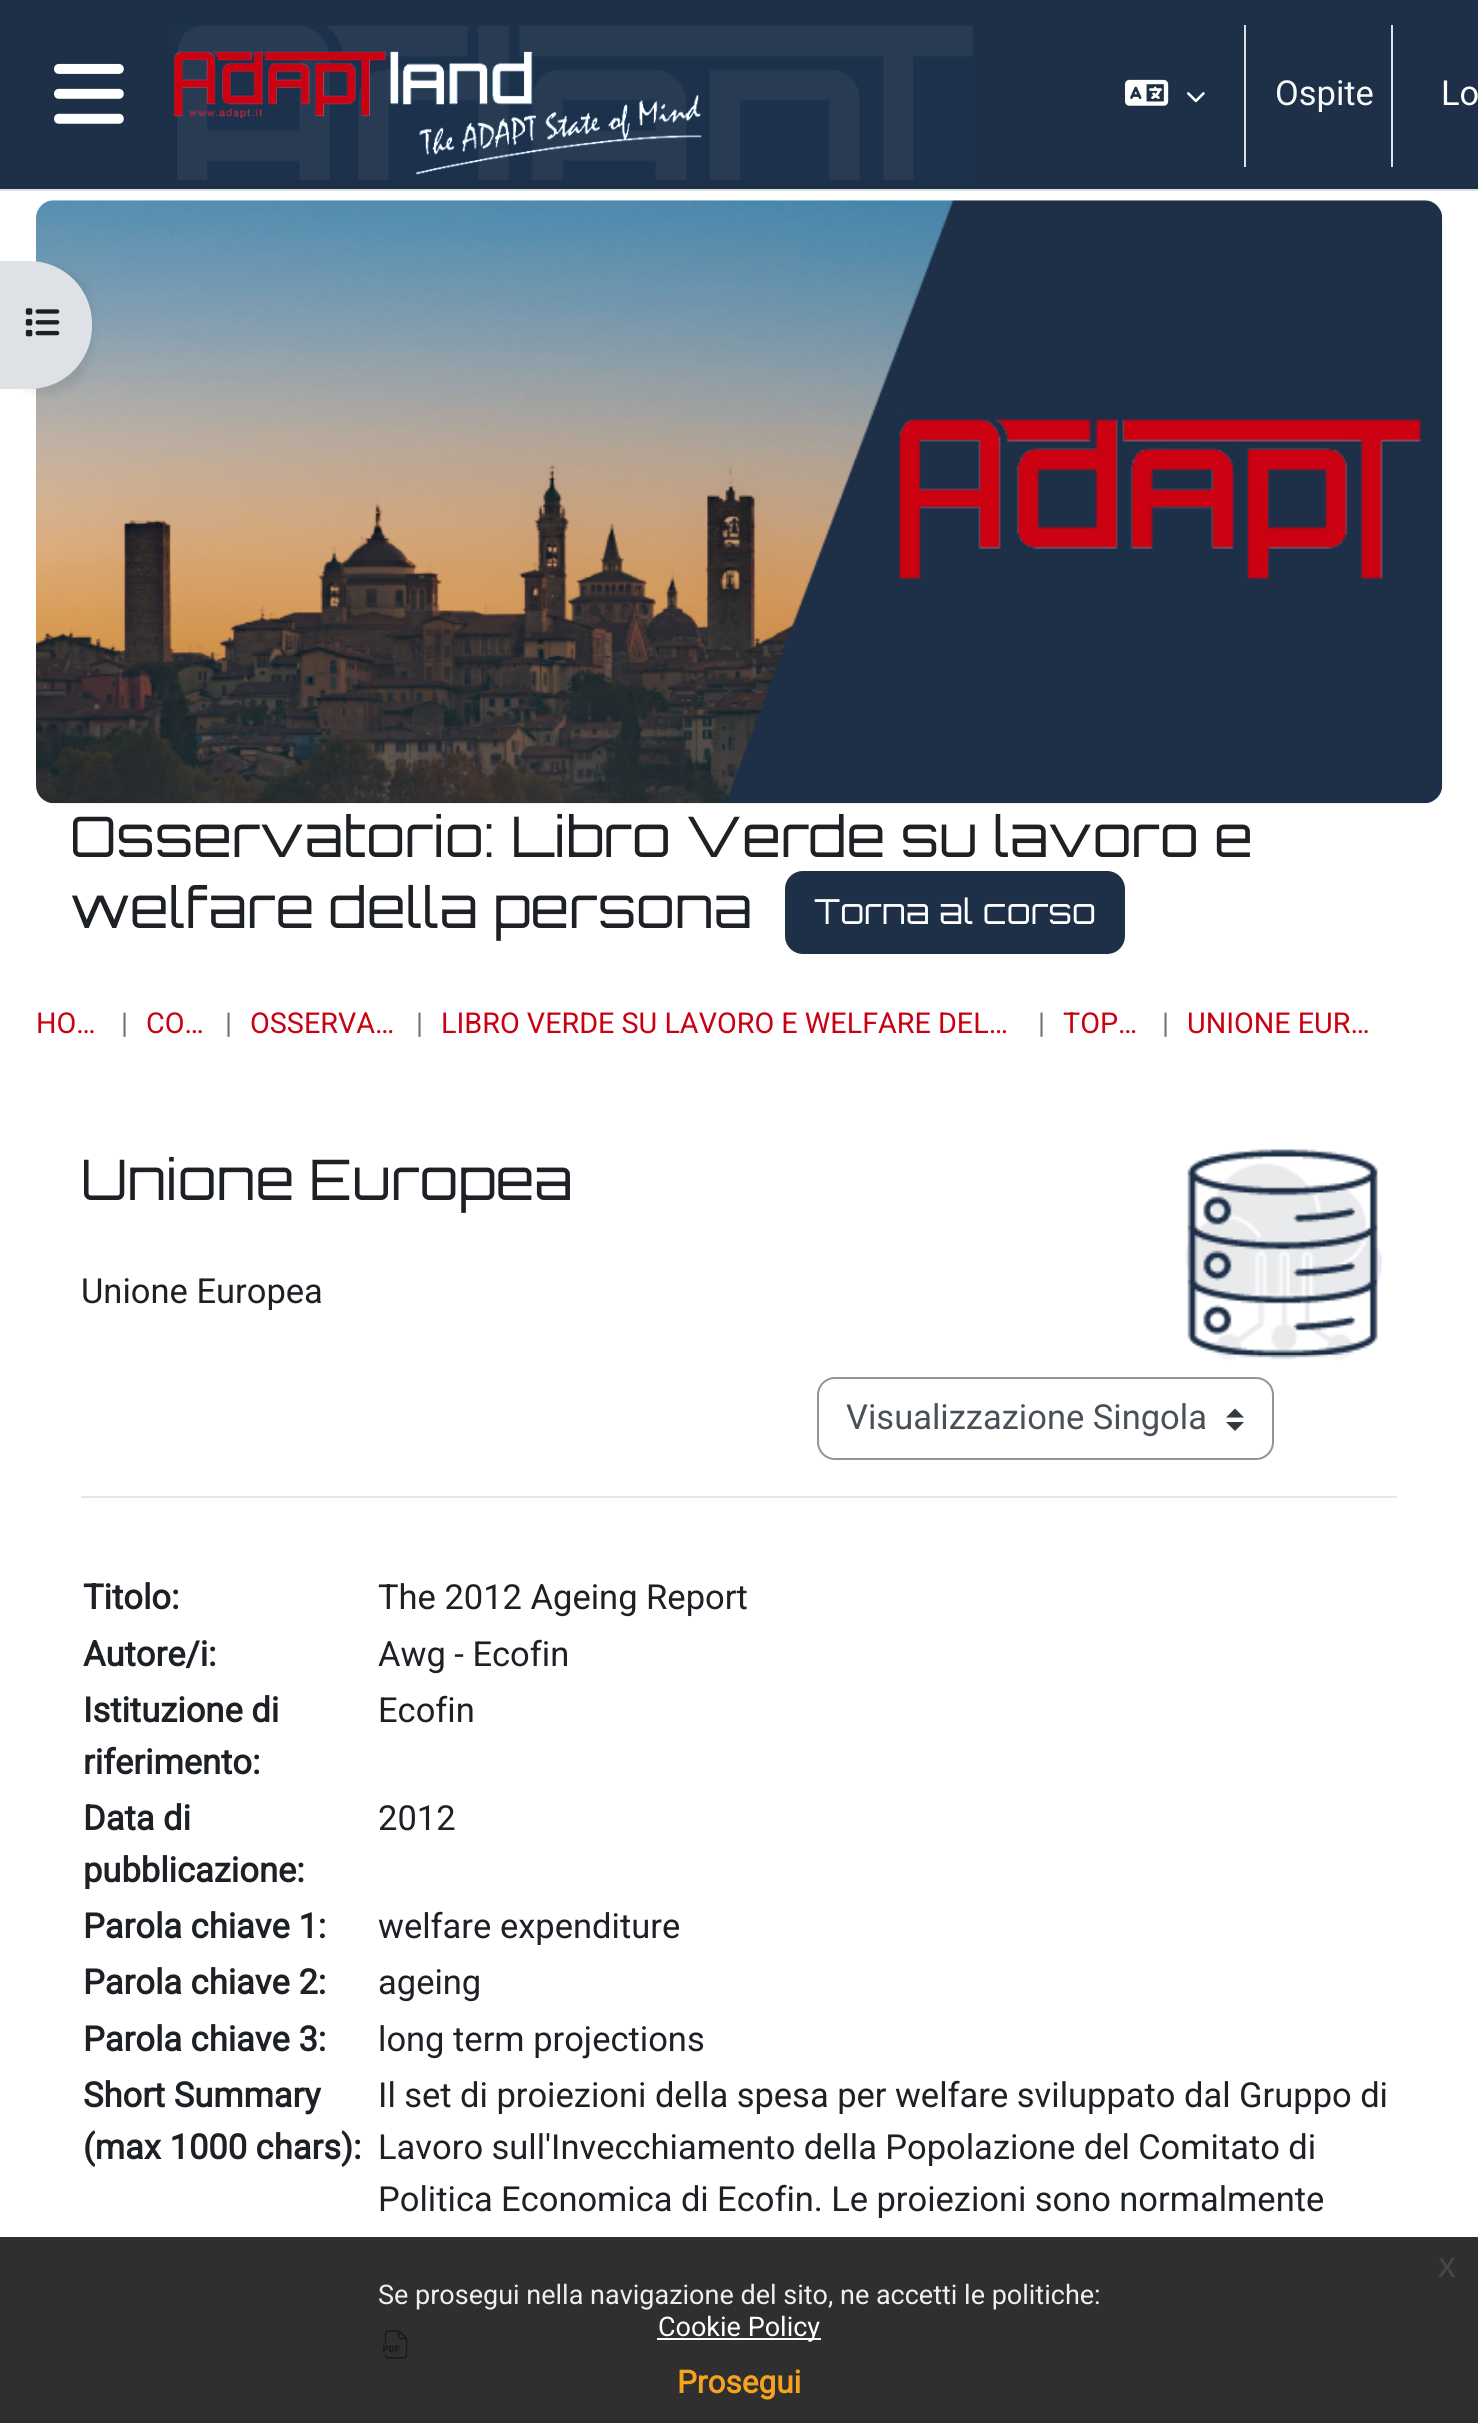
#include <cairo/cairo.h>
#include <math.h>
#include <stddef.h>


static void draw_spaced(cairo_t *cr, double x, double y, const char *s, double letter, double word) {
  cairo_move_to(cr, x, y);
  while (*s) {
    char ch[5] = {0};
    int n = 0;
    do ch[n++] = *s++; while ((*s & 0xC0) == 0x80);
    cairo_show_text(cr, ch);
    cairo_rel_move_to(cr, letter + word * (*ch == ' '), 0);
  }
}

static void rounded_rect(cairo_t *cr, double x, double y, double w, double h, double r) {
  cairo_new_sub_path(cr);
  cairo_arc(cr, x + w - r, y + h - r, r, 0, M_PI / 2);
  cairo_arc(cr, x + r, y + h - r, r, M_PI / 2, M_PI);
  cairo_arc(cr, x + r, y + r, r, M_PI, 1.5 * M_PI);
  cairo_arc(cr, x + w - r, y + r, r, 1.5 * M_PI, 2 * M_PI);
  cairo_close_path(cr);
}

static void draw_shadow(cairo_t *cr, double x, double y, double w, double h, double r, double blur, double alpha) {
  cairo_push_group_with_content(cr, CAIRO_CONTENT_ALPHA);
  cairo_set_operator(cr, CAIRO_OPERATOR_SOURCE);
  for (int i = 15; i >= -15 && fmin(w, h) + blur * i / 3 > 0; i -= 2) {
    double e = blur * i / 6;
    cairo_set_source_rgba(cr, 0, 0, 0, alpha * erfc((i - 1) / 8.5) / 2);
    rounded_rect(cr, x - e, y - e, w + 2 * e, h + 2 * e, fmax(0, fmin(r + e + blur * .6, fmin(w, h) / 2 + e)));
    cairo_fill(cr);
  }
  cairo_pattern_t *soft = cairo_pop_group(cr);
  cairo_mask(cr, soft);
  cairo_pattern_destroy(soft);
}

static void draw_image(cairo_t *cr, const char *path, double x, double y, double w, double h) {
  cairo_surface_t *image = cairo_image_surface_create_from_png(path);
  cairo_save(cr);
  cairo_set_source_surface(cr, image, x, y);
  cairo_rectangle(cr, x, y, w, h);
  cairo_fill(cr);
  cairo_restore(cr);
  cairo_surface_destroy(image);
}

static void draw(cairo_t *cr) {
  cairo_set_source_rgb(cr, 1, 1, 1);
  cairo_paint(cr);
  cairo_set_source_rgb(cr, 30 / 255.0, 47 / 255.0, 72 / 255.0);
  cairo_rectangle(cr, 0, 0, 1478, 189);
  cairo_fill(cr);
  cairo_set_source_rgb(cr, 222 / 255.0, 226 / 255.0, 230 / 255.0);
  cairo_rectangle(cr, 0, 189, 1478, 2);
  cairo_fill(cr);
  draw_image(cr, "images/1.png", 54, 63, 70, 61);
  draw_image(cr, "images/2.png", 174, 25, 799, 155);
  draw_image(cr, "images/3.png", 1125, 79, 44, 27);
  draw_image(cr, "images/4.png", 1187, 92, 18, 11);
  cairo_rectangle(cr, 1244, 25, 2, 142);
  cairo_fill(cr);
  cairo_rectangle(cr, 1391, 25, 2, 142);
  cairo_fill(cr);
  draw_image(cr, "images/5.png", 36, 200, 1407, 604);
  cairo_set_source_rgb(cr, 30 / 255.0, 47 / 255.0, 72 / 255.0);
  rounded_rect(cr, 786, 872, 338, 81, 17);
  cairo_fill_preserve(cr);
  cairo_stroke(cr);
  cairo_set_source_rgb(cr, 0, 0, 0);
  draw_shadow(cr, 0, 266, 92, 128, 63, 4.5, 0.07);
  cairo_set_source_rgb(cr, 222 / 255.0, 226 / 255.0, 230 / 255.0);
  cairo_new_path(cr);
  cairo_move_to(cr, 0, 261);
  cairo_line_to(cr, 29, 261);
  cairo_curve_to(cr, 64, 261, 92, 289, 92, 324);
  cairo_line_to(cr, 92, 326);
  cairo_curve_to(cr, 92, 361, 64, 389, 29, 389);
  cairo_line_to(cr, 0, 389);
  cairo_close_path(cr);
  cairo_fill(cr);
  draw_image(cr, "images/6.png", 25, 308, 35, 29);
  draw_image(cr, "images/7.png", 1185, 1149, 198, 212);
  cairo_set_source_rgba(cr, 1, 1, 1, 0.5);
  rounded_rect(cr, 81, 1355, 1316, 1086, 18);
  cairo_fill(cr);
  cairo_set_source_rgb(cr, 52 / 255.0, 58 / 255.0, 64 / 255.0);
  cairo_new_path(cr);
  cairo_move_to(cr, 1235, 1408.5);
  cairo_line_to(cr, 1226, 1417.5);
  cairo_line_to(cr, 1244, 1417.5);
  cairo_close_path(cr);
  cairo_move_to(cr, 1235, 1431);
  cairo_line_to(cr, 1226, 1422);
  cairo_line_to(cr, 1244, 1422);
  cairo_close_path(cr);
  cairo_fill(cr);
  rounded_rect(cr, 818, 1378, 455, 81, 17);
  cairo_set_source_rgb(cr, 143 / 255.0, 149 / 255.0, 158 / 255.0);
  cairo_stroke(cr);
  cairo_set_source_rgb(cr, 230 / 255.0, 230 / 255.0, 230 / 255.0);
  cairo_rectangle(cr, 81, 1496, 1316, 2);
  cairo_fill(cr);
  draw_image(cr, "images/8.png", 382, 2330, 26, 29);
  cairo_set_source_rgb(cr, 0, 0, 0);
  draw_shadow(cr, 0, 2423, 1478, 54, 0, 18, 0.15);
  cairo_set_source_rgba(cr, 25 / 255.0, 25 / 255.0, 25 / 255.0, 0.9);
  cairo_rectangle(cr, 0, 2237, 1478, 186);
  cairo_fill(cr);
  cairo_set_source_rgb(cr, 1, 1, 1);
  cairo_rectangle(cr, 657, 2338, 164, 2);
  cairo_fill(cr);
  cairo_select_font_face(cr, "Roboto", CAIRO_FONT_SLANT_NORMAL, CAIRO_FONT_WEIGHT_NORMAL);
  cairo_set_font_size(cr, 34.5);
  cairo_set_source_rgb(cr, 248 / 255.0, 249 / 255.0, 250 / 255.0);
  cairo_move_to(cr, 1275, 105);
  cairo_show_text(cr, "Ospite");
  cairo_set_source_rgb(cr, 1, 1, 1);
  cairo_move_to(cr, 1441, 105);
  cairo_show_text(cr, "Lo");
  cairo_select_font_face(cr, "Orbitron", CAIRO_FONT_SLANT_NORMAL, CAIRO_FONT_WEIGHT_NORMAL);
  cairo_set_font_size(cr, 55.9);
  cairo_set_source_rgb(cr, 29 / 255.0, 33 / 255.0, 37 / 255.0);
  cairo_move_to(cr, 70, 857);
  cairo_show_text(cr, "Osservatorio: Libro Verde su lavoro e");
  cairo_move_to(cr, 70, 928);
  cairo_show_text(cr, "welfare della persona");
  cairo_set_font_size(cr, 34.5);
  cairo_set_source_rgb(cr, 1, 1, 1);
  cairo_move_to(cr, 814, 924);
  cairo_show_text(cr, "Torna al corso");
  cairo_select_font_face(cr, "Roboto", CAIRO_FONT_SLANT_NORMAL, CAIRO_FONT_WEIGHT_NORMAL);
  cairo_set_font_size(cr, 28.75);
  cairo_set_source_rgb(cr, 201 / 255.0, 1 / 255.0, 18 / 255.0);
  cairo_move_to(cr, 36, 1033);
  cairo_show_text(cr, "HO…");
  cairo_set_source_rgb(cr, 106 / 255.0, 115 / 255.0, 123 / 255.0);
  cairo_move_to(cr, 121, 1033);
  cairo_show_text(cr, "|");
  cairo_set_source_rgb(cr, 201 / 255.0, 1 / 255.0, 18 / 255.0);
  cairo_move_to(cr, 146, 1033);
  cairo_show_text(cr, "CO…");
  cairo_set_source_rgb(cr, 106 / 255.0, 115 / 255.0, 123 / 255.0);
  cairo_move_to(cr, 225, 1033);
  cairo_show_text(cr, "|");
  cairo_set_source_rgb(cr, 201 / 255.0, 1 / 255.0, 18 / 255.0);
  cairo_move_to(cr, 250, 1033);
  cairo_show_text(cr, "OSSERVA…");
  cairo_set_source_rgb(cr, 106 / 255.0, 115 / 255.0, 123 / 255.0);
  cairo_move_to(cr, 416, 1033);
  cairo_show_text(cr, "|");
  cairo_set_source_rgb(cr, 201 / 255.0, 1 / 255.0, 18 / 255.0);
  cairo_move_to(cr, 441, 1033);
  cairo_show_text(cr, "LIBRO VERDE SU LAVORO E WELFARE DEL…");
  cairo_set_source_rgb(cr, 106 / 255.0, 115 / 255.0, 123 / 255.0);
  cairo_move_to(cr, 1038, 1033);
  cairo_show_text(cr, "|");
  cairo_set_source_rgb(cr, 201 / 255.0, 1 / 255.0, 18 / 255.0);
  cairo_move_to(cr, 1063, 1033);
  cairo_show_text(cr, "TOP…");
  cairo_set_source_rgb(cr, 106 / 255.0, 115 / 255.0, 123 / 255.0);
  cairo_move_to(cr, 1162, 1033);
  cairo_show_text(cr, "|");
  cairo_set_source_rgb(cr, 201 / 255.0, 1 / 255.0, 18 / 255.0);
  cairo_move_to(cr, 1187, 1033);
  cairo_show_text(cr, "UNIONE EUR…");
  cairo_select_font_face(cr, "Orbitron", CAIRO_FONT_SLANT_NORMAL, CAIRO_FONT_WEIGHT_NORMAL);
  cairo_set_font_size(cr, 55.9);
  cairo_set_source_rgb(cr, 29 / 255.0, 33 / 255.0, 37 / 255.0);
  cairo_move_to(cr, 81, 1200);
  cairo_show_text(cr, "Unione Europea");
  cairo_select_font_face(cr, "Roboto", CAIRO_FONT_SLANT_NORMAL, CAIRO_FONT_WEIGHT_NORMAL);
  cairo_set_font_size(cr, 34.5);
  cairo_move_to(cr, 81, 1303);
  cairo_show_text(cr, "Unione Europea");
  cairo_set_source_rgb(cr, 73 / 255.0, 80 / 255.0, 87 / 255.0);
  cairo_move_to(cr, 846, 1429);
  cairo_show_text(cr, "Visualizzazione Singola");
  cairo_select_font_face(cr, "Roboto", CAIRO_FONT_SLANT_NORMAL, CAIRO_FONT_WEIGHT_BOLD);
  cairo_set_source_rgb(cr, 29 / 255.0, 33 / 255.0, 37 / 255.0);
  cairo_move_to(cr, 83, 1609);
  cairo_show_text(cr, "Titolo:");
  cairo_select_font_face(cr, "Roboto", CAIRO_FONT_SLANT_NORMAL, CAIRO_FONT_WEIGHT_NORMAL);
  cairo_move_to(cr, 378, 1609);
  cairo_show_text(cr, "The 2012 Ageing Report");
  cairo_select_font_face(cr, "Roboto", CAIRO_FONT_SLANT_NORMAL, CAIRO_FONT_WEIGHT_BOLD);
  cairo_move_to(cr, 83, 1666);
  cairo_show_text(cr, "Autore/i:");
  cairo_select_font_face(cr, "Roboto", CAIRO_FONT_SLANT_NORMAL, CAIRO_FONT_WEIGHT_NORMAL);
  cairo_move_to(cr, 378, 1666);
  cairo_show_text(cr, "Awg - Ecofin");
  cairo_select_font_face(cr, "Roboto", CAIRO_FONT_SLANT_NORMAL, CAIRO_FONT_WEIGHT_BOLD);
  cairo_move_to(cr, 83, 1722);
  cairo_show_text(cr, "Istituzione di");
  cairo_move_to(cr, 83, 1774);
  cairo_show_text(cr, "riferimento:");
  cairo_select_font_face(cr, "Roboto", CAIRO_FONT_SLANT_NORMAL, CAIRO_FONT_WEIGHT_NORMAL);
  cairo_move_to(cr, 378, 1722);
  cairo_show_text(cr, "Ecofin");
  cairo_select_font_face(cr, "Roboto", CAIRO_FONT_SLANT_NORMAL, CAIRO_FONT_WEIGHT_BOLD);
  cairo_move_to(cr, 83, 1830);
  cairo_show_text(cr, "Data di");
  cairo_move_to(cr, 83, 1882);
  cairo_show_text(cr, "pubblicazione:");
  cairo_select_font_face(cr, "Roboto", CAIRO_FONT_SLANT_NORMAL, CAIRO_FONT_WEIGHT_NORMAL);
  cairo_move_to(cr, 378, 1830);
  cairo_show_text(cr, "2012");
  cairo_select_font_face(cr, "Roboto", CAIRO_FONT_SLANT_NORMAL, CAIRO_FONT_WEIGHT_BOLD);
  cairo_move_to(cr, 83, 1938);
  cairo_show_text(cr, "Parola chiave 1:");
  cairo_select_font_face(cr, "Roboto", CAIRO_FONT_SLANT_NORMAL, CAIRO_FONT_WEIGHT_NORMAL);
  cairo_move_to(cr, 378, 1938);
  cairo_show_text(cr, "welfare expenditure");
  cairo_select_font_face(cr, "Roboto", CAIRO_FONT_SLANT_NORMAL, CAIRO_FONT_WEIGHT_BOLD);
  cairo_move_to(cr, 83, 1994);
  cairo_show_text(cr, "Parola chiave 2:");
  cairo_select_font_face(cr, "Roboto", CAIRO_FONT_SLANT_NORMAL, CAIRO_FONT_WEIGHT_NORMAL);
  cairo_move_to(cr, 378, 1994);
  cairo_show_text(cr, "ageing");
  cairo_select_font_face(cr, "Roboto", CAIRO_FONT_SLANT_NORMAL, CAIRO_FONT_WEIGHT_BOLD);
  cairo_move_to(cr, 83, 2051);
  cairo_show_text(cr, "Parola chiave 3:");
  cairo_select_font_face(cr, "Roboto", CAIRO_FONT_SLANT_NORMAL, CAIRO_FONT_WEIGHT_NORMAL);
  cairo_move_to(cr, 378, 2051);
  cairo_show_text(cr, "long term projections");
  cairo_select_font_face(cr, "Roboto", CAIRO_FONT_SLANT_NORMAL, CAIRO_FONT_WEIGHT_BOLD);
  cairo_move_to(cr, 83, 2107);
  cairo_show_text(cr, "Short Summary");
  cairo_move_to(cr, 83, 2159);
  cairo_show_text(cr, "(max 1000 chars):");
  cairo_select_font_face(cr, "Roboto", CAIRO_FONT_SLANT_NORMAL, CAIRO_FONT_WEIGHT_NORMAL);
  draw_spaced(cr, 378, 2107, "Il set di proiezioni della spesa per welfare sviluppato dal Gruppo di", 0, -0.1);
  draw_spaced(cr, 378, 2159, "Lavoro sull'Invecchiamento della Popolazione del Comitato di", 0, -0.25);
  draw_spaced(cr, 378, 2211, "Politica Economica di Ecofin. Le proiezioni sono normalmente", 0, -0.25);
  cairo_select_font_face(cr, "Liberation Sans", CAIRO_FONT_SLANT_NORMAL, CAIRO_FONT_WEIGHT_NORMAL);
  cairo_set_font_size(cr, 36);
  cairo_set_source_rgb(cr, 71 / 255.0, 71 / 255.0, 71 / 255.0);
  cairo_move_to(cr, 1438, 2277);
  cairo_show_text(cr, "x");
  cairo_select_font_face(cr, "Roboto", CAIRO_FONT_SLANT_NORMAL, CAIRO_FONT_WEIGHT_NORMAL);
  cairo_set_font_size(cr, 27);
  cairo_set_source_rgb(cr, 239 / 255.0, 239 / 255.0, 239 / 255.0);
  cairo_move_to(cr, 378, 2304);
  cairo_show_text(cr, "Se prosegui nella navigazione del sito, ne accetti le politiche:");
  cairo_set_source_rgb(cr, 1, 1, 1);
  cairo_move_to(cr, 658, 2336);
  cairo_show_text(cr, "Cookie Policy");
  cairo_select_font_face(cr, "Roboto", CAIRO_FONT_SLANT_NORMAL, CAIRO_FONT_WEIGHT_BOLD);
  cairo_set_font_size(cr, 31.5);
  cairo_set_source_rgb(cr, 246 / 255.0, 162 / 255.0, 29 / 255.0);
  cairo_move_to(cr, 677, 2393);
  cairo_show_text(cr, "Prosegui");
}

int main(void) {
  cairo_surface_t *surface = cairo_image_surface_create(CAIRO_FORMAT_RGB24, 1478, 2423);
  cairo_t *cr = cairo_create(surface);
  cairo_font_options_t *options = cairo_font_options_create();
  cairo_font_options_set_hint_metrics(options, CAIRO_HINT_METRICS_OFF);
  cairo_font_options_set_hint_style(options, CAIRO_HINT_STYLE_NONE);
  cairo_set_font_options(cr, options);
  cairo_set_miter_limit(cr, 4);
  draw(cr);
  cairo_surface_write_to_png(surface, "out.png");
  cairo_font_options_destroy(options);
  cairo_destroy(cr);
  cairo_surface_destroy(surface);
  return 0;
}
